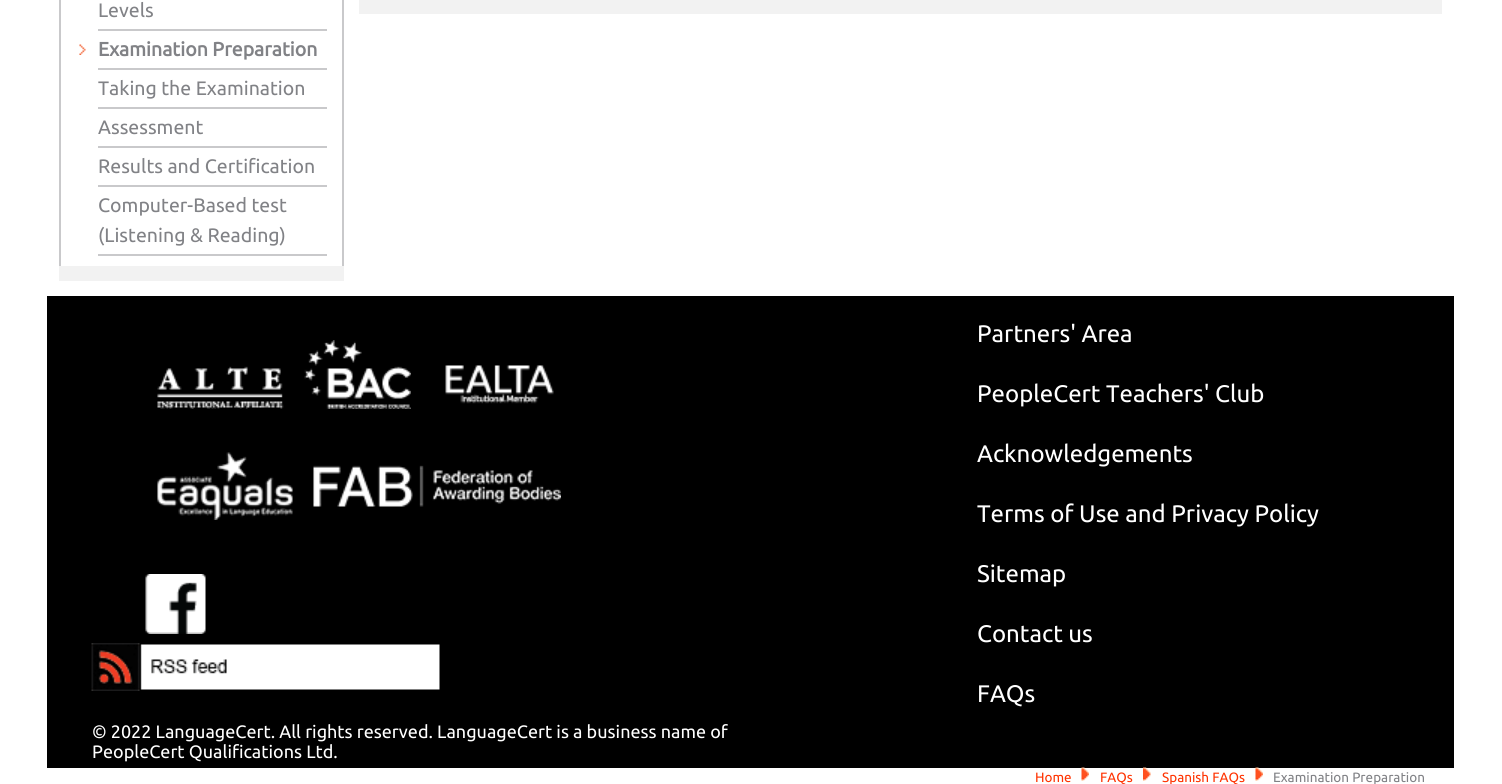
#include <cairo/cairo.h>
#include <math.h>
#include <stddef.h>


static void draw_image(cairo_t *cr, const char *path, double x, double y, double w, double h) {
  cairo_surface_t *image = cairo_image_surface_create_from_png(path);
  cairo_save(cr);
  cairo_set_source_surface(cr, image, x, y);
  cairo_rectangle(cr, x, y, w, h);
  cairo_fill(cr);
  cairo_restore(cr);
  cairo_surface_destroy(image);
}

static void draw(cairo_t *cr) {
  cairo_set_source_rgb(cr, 1, 1, 1);
  cairo_paint(cr);
  cairo_set_source_rgb(cr, 201 / 255.0, 201 / 255.0, 203 / 255.0);
  cairo_rectangle(cr, 342, 0, 2, 266);
  cairo_fill(cr);
  cairo_rectangle(cr, 59, 0, 2, 266);
  cairo_fill(cr);
  cairo_rectangle(cr, 98, 29, 229, 2);
  cairo_fill(cr);
  cairo_rectangle(cr, 98, 68, 229, 2);
  cairo_fill(cr);
  draw_image(cr, "images/1.png", 79, 44, 7, 11);
  cairo_rectangle(cr, 98, 107, 229, 2);
  cairo_fill(cr);
  cairo_rectangle(cr, 98, 146, 229, 2);
  cairo_fill(cr);
  cairo_rectangle(cr, 98, 185, 229, 2);
  cairo_fill(cr);
  cairo_rectangle(cr, 98, 254, 229, 2);
  cairo_fill(cr);
  cairo_set_source_rgb(cr, 242 / 255.0, 242 / 255.0, 242 / 255.0);
  cairo_rectangle(cr, 59, 266, 285, 15);
  cairo_fill(cr);
  cairo_rectangle(cr, 359, 0, 1083, 14);
  cairo_fill(cr);
  cairo_set_source_rgb(cr, 0, 0, 0);
  cairo_rectangle(cr, 47, 296, 1407, 472);
  cairo_fill(cr);
  draw_image(cr, "images/2.png", 157, 366, 127, 43);
  draw_image(cr, "images/3.png", 304, 340, 107, 69);
  draw_image(cr, "images/4.png", 445, 365, 109, 39);
  draw_image(cr, "images/5.png", 157, 452, 136, 68);
  draw_image(cr, "images/6.png", 313, 465, 248, 42);
  draw_image(cr, "images/7.png", 145, 574, 61, 60);
  draw_image(cr, "images/8.png", 91, 643, 349, 48);
  draw_image(cr, "images/9.png", 1081, 767, 8, 14);
  draw_image(cr, "images/10.png", 1143, 767, 8, 14);
  draw_image(cr, "images/9.png", 1255, 767, 8, 14);
  cairo_select_font_face(cr, "Ubuntu", CAIRO_FONT_SLANT_NORMAL, CAIRO_FONT_WEIGHT_NORMAL);
  cairo_set_font_size(cr, 19.5);
  cairo_set_source_rgb(cr, 129 / 255.0, 130 / 255.0, 134 / 255.0);
  cairo_move_to(cr, 98, 17);
  cairo_show_text(cr, "Levels");
  cairo_select_font_face(cr, "Ubuntu", CAIRO_FONT_SLANT_NORMAL, CAIRO_FONT_WEIGHT_BOLD);
  cairo_move_to(cr, 98, 56);
  cairo_show_text(cr, "Examination Preparation");
  cairo_select_font_face(cr, "Ubuntu", CAIRO_FONT_SLANT_NORMAL, CAIRO_FONT_WEIGHT_NORMAL);
  cairo_move_to(cr, 98, 95);
  cairo_show_text(cr, "Taking the Examination");
  cairo_move_to(cr, 98, 134);
  cairo_show_text(cr, "Assessment");
  cairo_move_to(cr, 98, 173);
  cairo_show_text(cr, "Results and Certification");
  cairo_move_to(cr, 98, 212);
  cairo_show_text(cr, "Computer-Based test");
  cairo_move_to(cr, 98, 242);
  cairo_show_text(cr, "(Listening & Reading)");
  cairo_set_font_size(cr, 24);
  cairo_set_source_rgb(cr, 1, 1, 1);
  cairo_move_to(cr, 977, 342);
  cairo_show_text(cr, "Partners' Area");
  cairo_move_to(cr, 977, 402);
  cairo_show_text(cr, "PeopleCert Teachers' Club");
  cairo_move_to(cr, 977, 462);
  cairo_show_text(cr, "Acknowledgements");
  cairo_move_to(cr, 977, 522);
  cairo_show_text(cr, "Terms of Use and Privacy Policy");
  cairo_move_to(cr, 977, 582);
  cairo_show_text(cr, "Sitemap");
  cairo_move_to(cr, 977, 642);
  cairo_show_text(cr, "Contact us");
  cairo_move_to(cr, 977, 702);
  cairo_show_text(cr, "FAQs");
  cairo_set_font_size(cr, 18);
  cairo_move_to(cr, 92, 738);
  cairo_show_text(cr, "© 2022 LanguageCert. All rights reserved. LanguageCert is a business name of");
  cairo_move_to(cr, 92, 758);
  cairo_show_text(cr, "PeopleCert Qualifications Ltd.");
  cairo_set_font_size(cr, 13.5);
  cairo_set_source_rgb(cr, 1, 50 / 255.0, 0);
  cairo_move_to(cr, 1035, 782);
  cairo_show_text(cr, "Home");
  cairo_move_to(cr, 1100, 782);
  cairo_show_text(cr, "FAQs");
  cairo_move_to(cr, 1162, 782);
  cairo_show_text(cr, "Spanish FAQs");
  cairo_set_source_rgb(cr, 129 / 255.0, 130 / 255.0, 134 / 255.0);
  cairo_move_to(cr, 1273, 782);
  cairo_show_text(cr, "Examination Preparation");
}

int main(void) {
  cairo_surface_t *surface = cairo_image_surface_create(CAIRO_FORMAT_RGB24, 1502, 784);
  cairo_t *cr = cairo_create(surface);
  cairo_font_options_t *options = cairo_font_options_create();
  cairo_font_options_set_hint_metrics(options, CAIRO_HINT_METRICS_OFF);
  cairo_font_options_set_hint_style(options, CAIRO_HINT_STYLE_NONE);
  cairo_set_font_options(cr, options);
  cairo_set_miter_limit(cr, 4);
  draw(cr);
  cairo_surface_write_to_png(surface, "out.png");
  cairo_font_options_destroy(options);
  cairo_destroy(cr);
  cairo_surface_destroy(surface);
  return 0;
}
